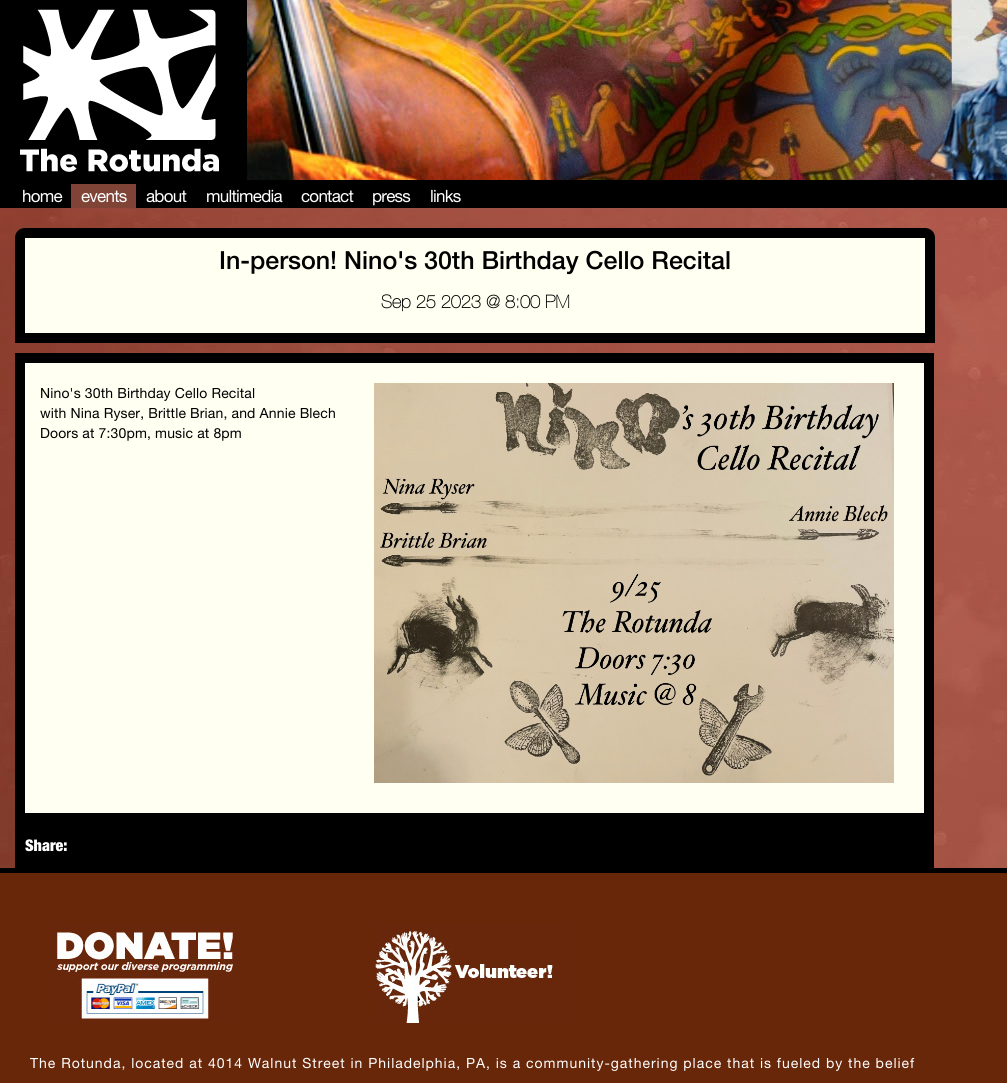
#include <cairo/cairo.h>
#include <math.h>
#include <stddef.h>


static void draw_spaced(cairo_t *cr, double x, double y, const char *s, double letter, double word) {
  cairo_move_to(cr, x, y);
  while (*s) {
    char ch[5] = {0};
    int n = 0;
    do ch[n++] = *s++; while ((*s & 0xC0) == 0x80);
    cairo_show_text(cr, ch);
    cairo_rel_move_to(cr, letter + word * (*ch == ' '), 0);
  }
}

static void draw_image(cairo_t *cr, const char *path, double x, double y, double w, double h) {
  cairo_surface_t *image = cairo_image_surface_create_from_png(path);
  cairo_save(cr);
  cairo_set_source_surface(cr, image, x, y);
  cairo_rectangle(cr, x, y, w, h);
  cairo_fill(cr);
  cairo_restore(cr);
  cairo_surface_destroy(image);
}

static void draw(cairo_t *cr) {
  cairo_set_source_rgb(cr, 0, 0, 0);
  cairo_paint(cr);
  draw_image(cr, "images/1.png", 20, 9, 199, 163);
  draw_image(cr, "images/2.png", 247, 0, 760, 180);
  cairo_set_source_rgb(cr, 127 / 255.0, 68 / 255.0, 54 / 255.0);
  cairo_rectangle(cr, 71, 184, 65, 24);
  cairo_fill(cr);
  draw_image(cr, "images/3.png", 0, 208, 1007, 660);
  cairo_set_source_rgb(cr, 1, 1, 242 / 255.0);
  cairo_new_path(cr);
  cairo_move_to(cr, 25, 233);
  cairo_line_to(cr, 925, 233);
  cairo_curve_to(cr, 928, 233, 930, 235, 930, 238);
  cairo_line_to(cr, 930, 338);
  cairo_line_to(cr, 20, 338);
  cairo_line_to(cr, 20, 238);
  cairo_curve_to(cr, 20, 235, 22, 233, 25, 233);
  cairo_close_path(cr);
  cairo_fill_preserve(cr);
  cairo_set_source_rgb(cr, 0, 0, 0);
  cairo_set_line_width(cr, 10);
  cairo_stroke(cr);
  cairo_rectangle(cr, 15, 353, 919, 515);
  cairo_fill(cr);
  cairo_set_source_rgb(cr, 1, 1, 242 / 255.0);
  cairo_rectangle(cr, 25, 363, 899, 450);
  cairo_fill(cr);
  draw_image(cr, "images/4.png", 374, 383, 520, 400);
  cairo_set_source_rgb(cr, 105 / 255.0, 39 / 255.0, 10 / 255.0);
  cairo_rectangle(cr, 0, 873, 1007, 210);
  cairo_fill(cr);
  draw_image(cr, "images/5.png", 50, 923, 190, 100);
  draw_image(cr, "images/6.png", 373, 923, 190, 100);
  cairo_select_font_face(cr, "Helvetica Neue", CAIRO_FONT_SLANT_NORMAL, CAIRO_FONT_WEIGHT_NORMAL);
  cairo_set_font_size(cr, 17);
  cairo_set_source_rgb(cr, 1, 1, 1);
  draw_spaced(cr, 22, 202, "home", -0.75, 0);
  draw_spaced(cr, 81, 202, "events", -0.75, 0);
  draw_spaced(cr, 146, 202, "about", -0.75, 0);
  draw_spaced(cr, 206, 202, "multimedia", -0.75, 0);
  draw_spaced(cr, 301, 202, "contact", -0.75, 0);
  draw_spaced(cr, 372, 202, "press", -0.75, 0);
  draw_spaced(cr, 430, 202, "links", -0.75, 0);
  cairo_select_font_face(cr, "Helvetica Neue Medium", CAIRO_FONT_SLANT_NORMAL, CAIRO_FONT_WEIGHT_NORMAL);
  cairo_set_font_size(cr, 25);
  cairo_set_source_rgb(cr, 0, 0, 0);
  cairo_move_to(cr, 219, 269);
  cairo_show_text(cr, "In-person! Nino's 30th Birthday Cello Recital");
  cairo_select_font_face(cr, "Helvetica Neue", CAIRO_FONT_SLANT_NORMAL, CAIRO_FONT_WEIGHT_BOLD);
  cairo_set_font_size(cr, 18);
  cairo_move_to(cr, 381, 308);
  cairo_show_text(cr, "Sep 25 2023 @ 8:00 PM");
  cairo_select_font_face(cr, "Helvetica Neue", CAIRO_FONT_SLANT_NORMAL, CAIRO_FONT_WEIGHT_NORMAL);
  cairo_set_font_size(cr, 14);
  draw_spaced(cr, 40, 398, "Nino's 30th Birthday Cello Recital", 0.15, 0);
  draw_spaced(cr, 40, 418, "with Nina Ryser, Brittle Brian, and Annie Blech", 0.15, 0);
  draw_spaced(cr, 40, 438, "Doors at 7:30pm, music at 8pm", 0.15, 0);
  cairo_select_font_face(cr, "Helvetica Neue Black", CAIRO_FONT_SLANT_NORMAL, CAIRO_FONT_WEIGHT_NORMAL);
  cairo_set_font_size(cr, 16);
  cairo_set_source_rgb(cr, 1, 1, 1);
  cairo_move_to(cr, 25, 851);
  cairo_show_text(cr, "Share:");
  cairo_select_font_face(cr, "Helvetica Neue", CAIRO_FONT_SLANT_NORMAL, CAIRO_FONT_WEIGHT_NORMAL);
  cairo_set_font_size(cr, 14);
  draw_spaced(cr, 30, 1068, "The Rotunda, located at 4014 Walnut Street in Philadelphia, PA, is a community-gathering place that is fueled by the belief", 0.98, 0);
}

int main(void) {
  cairo_surface_t *surface = cairo_image_surface_create(CAIRO_FORMAT_RGB24, 1007, 1083);
  cairo_t *cr = cairo_create(surface);
  cairo_font_options_t *options = cairo_font_options_create();
  cairo_font_options_set_hint_metrics(options, CAIRO_HINT_METRICS_OFF);
  cairo_font_options_set_hint_style(options, CAIRO_HINT_STYLE_NONE);
  cairo_set_font_options(cr, options);
  cairo_set_miter_limit(cr, 4);
  draw(cr);
  cairo_surface_write_to_png(surface, "out.png");
  cairo_font_options_destroy(options);
  cairo_destroy(cr);
  cairo_surface_destroy(surface);
  return 0;
}
